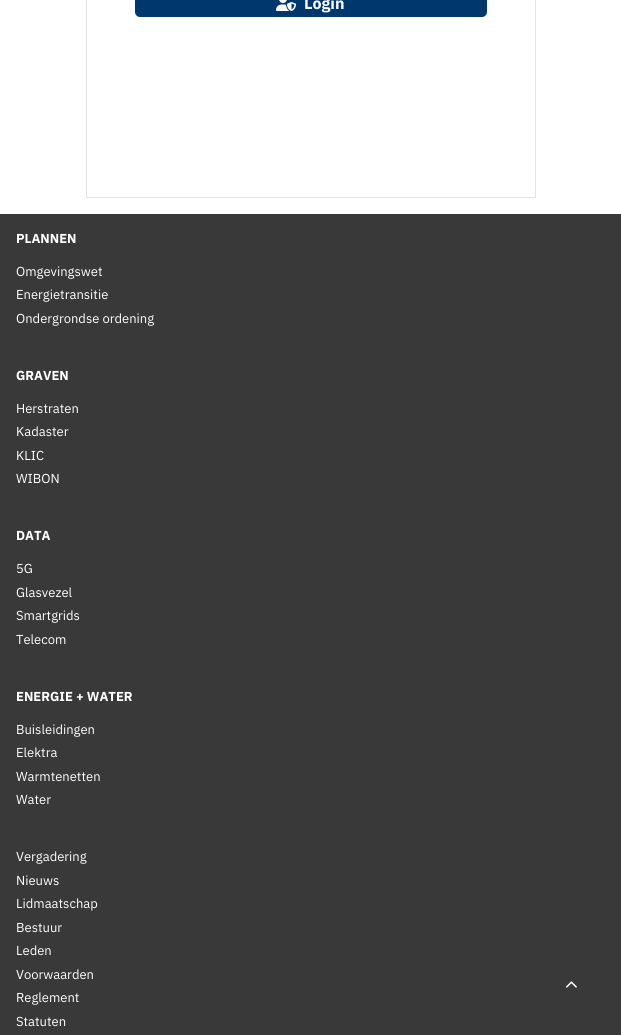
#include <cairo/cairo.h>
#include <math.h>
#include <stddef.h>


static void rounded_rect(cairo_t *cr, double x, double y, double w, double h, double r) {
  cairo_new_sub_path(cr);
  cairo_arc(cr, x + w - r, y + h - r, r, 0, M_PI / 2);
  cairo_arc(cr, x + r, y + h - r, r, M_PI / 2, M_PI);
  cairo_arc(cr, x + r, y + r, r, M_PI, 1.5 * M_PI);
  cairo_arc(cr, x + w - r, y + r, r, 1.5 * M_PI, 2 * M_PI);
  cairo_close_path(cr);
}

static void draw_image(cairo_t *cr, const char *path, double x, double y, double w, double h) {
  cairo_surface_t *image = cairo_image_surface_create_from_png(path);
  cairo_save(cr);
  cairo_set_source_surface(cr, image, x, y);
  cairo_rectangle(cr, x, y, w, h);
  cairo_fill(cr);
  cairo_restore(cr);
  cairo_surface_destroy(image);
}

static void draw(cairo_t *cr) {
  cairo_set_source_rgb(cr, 1, 1, 1);
  cairo_paint(cr);
  cairo_rectangle(cr, 86.5, -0.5, 449, 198);
  cairo_set_source_rgb(cr, 226 / 255.0, 227 / 255.0, 229 / 255.0);
  cairo_set_line_width(cr, 1);
  cairo_stroke(cr);
  cairo_set_source_rgb(cr, 0, 56 / 255.0, 110 / 255.0);
  rounded_rect(cr, 135, -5, 352, 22, 5);
  cairo_fill(cr);
  draw_image(cr, "images/1.png", 276, 0, 20, 11);
  cairo_set_source_rgb(cr, 57 / 255.0, 57 / 255.0, 57 / 255.0);
  cairo_rectangle(cr, 0, 214, 621, 821);
  cairo_fill(cr);
  draw_image(cr, "images/2.png", 565, 981, 12, 7);
  cairo_select_font_face(cr, "IBM Plex Sans", CAIRO_FONT_SLANT_NORMAL, CAIRO_FONT_WEIGHT_BOLD);
  cairo_set_font_size(cr, 16);
  cairo_set_source_rgb(cr, 1, 1, 1);
  cairo_move_to(cr, 304, 9);
  cairo_show_text(cr, "Login");
  cairo_set_font_size(cr, 13);
  cairo_move_to(cr, 16, 243);
  cairo_show_text(cr, "PLANNEN");
  cairo_select_font_face(cr, "IBM Plex Sans", CAIRO_FONT_SLANT_NORMAL, CAIRO_FONT_WEIGHT_NORMAL);
  cairo_move_to(cr, 16, 276);
  cairo_show_text(cr, "Omgevingswet");
  cairo_move_to(cr, 16, 299);
  cairo_show_text(cr, "Energietransitie");
  cairo_move_to(cr, 16, 323);
  cairo_show_text(cr, "Ondergrondse ordening");
  cairo_select_font_face(cr, "IBM Plex Sans", CAIRO_FONT_SLANT_NORMAL, CAIRO_FONT_WEIGHT_BOLD);
  cairo_move_to(cr, 16, 380);
  cairo_show_text(cr, "GRAVEN");
  cairo_select_font_face(cr, "IBM Plex Sans", CAIRO_FONT_SLANT_NORMAL, CAIRO_FONT_WEIGHT_NORMAL);
  cairo_move_to(cr, 16, 413);
  cairo_show_text(cr, "Herstraten");
  cairo_move_to(cr, 16, 436);
  cairo_show_text(cr, "Kadaster");
  cairo_move_to(cr, 16, 460);
  cairo_show_text(cr, "KLIC");
  cairo_move_to(cr, 16, 483);
  cairo_show_text(cr, "WIBON");
  cairo_select_font_face(cr, "IBM Plex Sans", CAIRO_FONT_SLANT_NORMAL, CAIRO_FONT_WEIGHT_BOLD);
  cairo_move_to(cr, 16, 540);
  cairo_show_text(cr, "DATA");
  cairo_select_font_face(cr, "IBM Plex Sans", CAIRO_FONT_SLANT_NORMAL, CAIRO_FONT_WEIGHT_NORMAL);
  cairo_move_to(cr, 16, 573);
  cairo_show_text(cr, "5G");
  cairo_move_to(cr, 16, 597);
  cairo_show_text(cr, "Glasvezel");
  cairo_move_to(cr, 16, 620);
  cairo_show_text(cr, "Smartgrids");
  cairo_move_to(cr, 16, 644);
  cairo_show_text(cr, "Telecom");
  cairo_select_font_face(cr, "IBM Plex Sans", CAIRO_FONT_SLANT_NORMAL, CAIRO_FONT_WEIGHT_BOLD);
  cairo_move_to(cr, 16, 701);
  cairo_show_text(cr, "ENERGIE + WATER");
  cairo_select_font_face(cr, "IBM Plex Sans", CAIRO_FONT_SLANT_NORMAL, CAIRO_FONT_WEIGHT_NORMAL);
  cairo_move_to(cr, 16, 734);
  cairo_show_text(cr, "Buisleidingen");
  cairo_move_to(cr, 16, 757);
  cairo_show_text(cr, "Elektra");
  cairo_move_to(cr, 16, 781);
  cairo_show_text(cr, "Warmtenetten");
  cairo_move_to(cr, 16, 804);
  cairo_show_text(cr, "Water");
  cairo_move_to(cr, 16, 861);
  cairo_show_text(cr, "Vergadering");
  cairo_move_to(cr, 16, 885);
  cairo_show_text(cr, "Nieuws");
  cairo_move_to(cr, 16, 908);
  cairo_show_text(cr, "Lidmaatschap");
  cairo_move_to(cr, 16, 932);
  cairo_show_text(cr, "Bestuur");
  cairo_move_to(cr, 16, 955);
  cairo_show_text(cr, "Leden");
  cairo_move_to(cr, 16, 979);
  cairo_show_text(cr, "Voorwaarden");
  cairo_move_to(cr, 16, 1002);
  cairo_show_text(cr, "Reglement");
  cairo_move_to(cr, 16, 1026);
  cairo_show_text(cr, "Statuten");
}

int main(void) {
  cairo_surface_t *surface = cairo_image_surface_create(CAIRO_FORMAT_RGB24, 621, 1035);
  cairo_t *cr = cairo_create(surface);
  cairo_font_options_t *options = cairo_font_options_create();
  cairo_font_options_set_hint_metrics(options, CAIRO_HINT_METRICS_OFF);
  cairo_font_options_set_hint_style(options, CAIRO_HINT_STYLE_NONE);
  cairo_set_font_options(cr, options);
  cairo_set_miter_limit(cr, 4);
  draw(cr);
  cairo_surface_write_to_png(surface, "out.png");
  cairo_font_options_destroy(options);
  cairo_destroy(cr);
  cairo_surface_destroy(surface);
  return 0;
}
